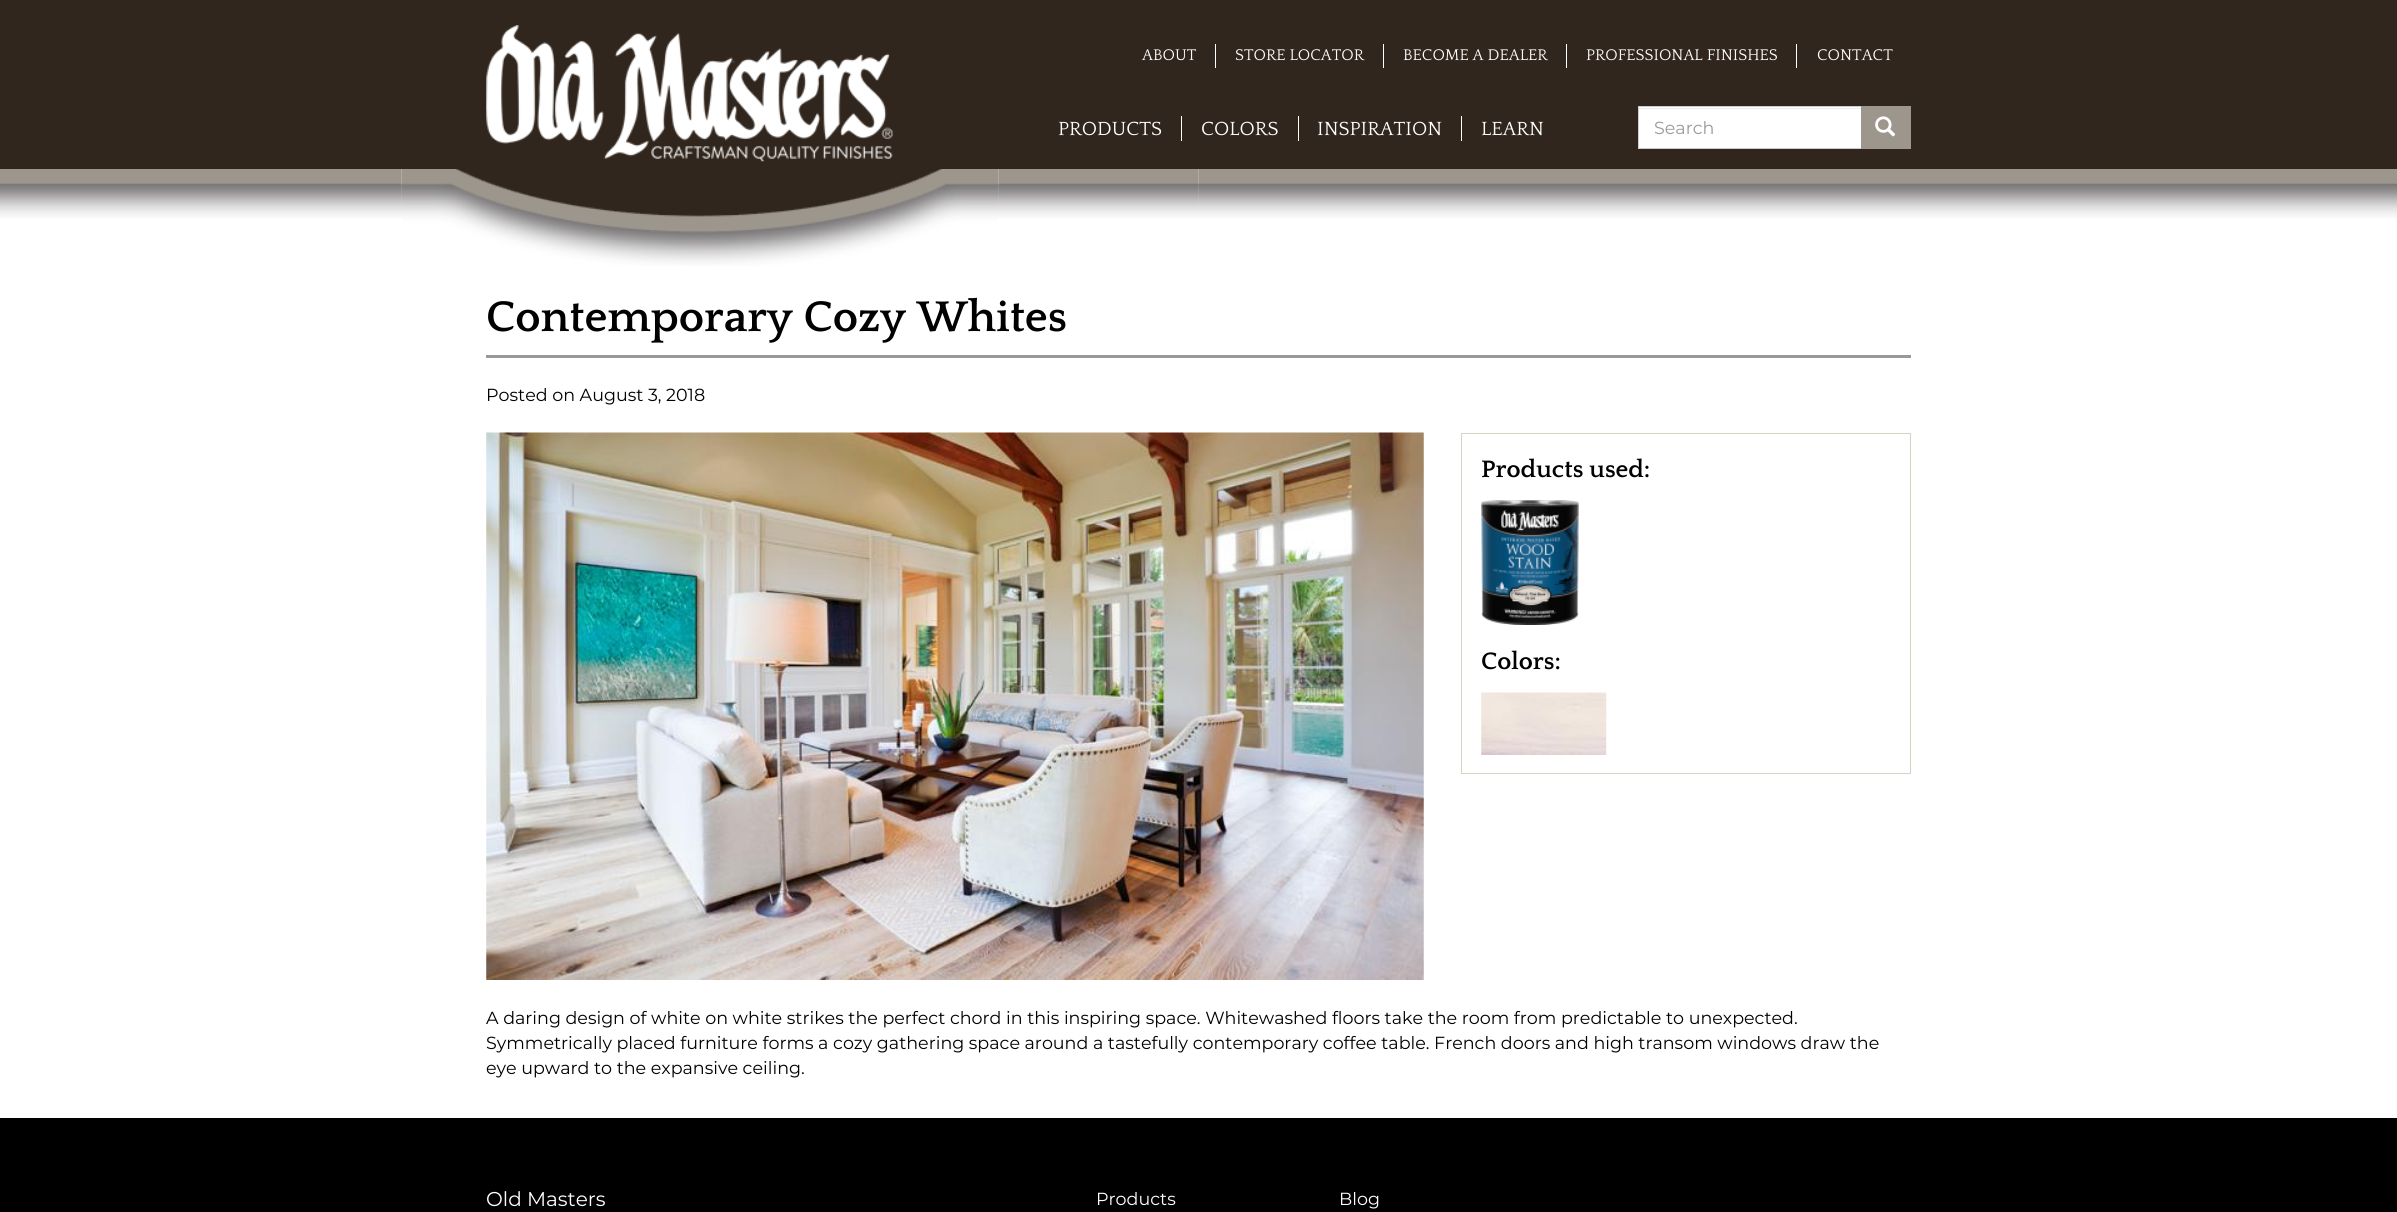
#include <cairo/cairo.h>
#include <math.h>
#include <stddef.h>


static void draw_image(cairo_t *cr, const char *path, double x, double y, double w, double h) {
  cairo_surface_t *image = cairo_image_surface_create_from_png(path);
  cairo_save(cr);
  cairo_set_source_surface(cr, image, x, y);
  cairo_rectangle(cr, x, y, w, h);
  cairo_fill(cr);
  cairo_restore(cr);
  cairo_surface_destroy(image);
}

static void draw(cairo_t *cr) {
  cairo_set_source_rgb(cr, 0, 0, 0);
  cairo_paint(cr);
  cairo_set_source_rgb(cr, 49 / 255.0, 38 / 255.0, 29 / 255.0);
  cairo_rectangle(cr, 0, 0, 2397, 169);
  cairo_fill(cr);
  draw_image(cr, "images/1.png", 486, 25, 407, 137);
  cairo_set_source_rgb(cr, 1, 1, 1);
  cairo_rectangle(cr, 1215, 44, 1, 24);
  cairo_fill(cr);
  cairo_rectangle(cr, 1383, 44, 1, 24);
  cairo_fill(cr);
  cairo_rectangle(cr, 1566, 44, 1, 24);
  cairo_fill(cr);
  cairo_rectangle(cr, 1796, 44, 1, 24);
  cairo_fill(cr);
  cairo_rectangle(cr, 1181, 116, 1, 25);
  cairo_fill(cr);
  cairo_rectangle(cr, 1298, 116, 1, 25);
  cairo_fill(cr);
  cairo_rectangle(cr, 1461, 116, 1, 25);
  cairo_fill(cr);
  cairo_rectangle(cr, 1639, 107, 222, 41);
  cairo_fill(cr);
  cairo_set_source_rgb(cr, 236 / 255.0, 236 / 255.0, 236 / 255.0);
  cairo_rectangle(cr, 1639, 108, 222, 1);
  cairo_fill(cr);
  cairo_rectangle(cr, 1638.5, 106.5, 224, 42);
  cairo_set_source_rgb(cr, 204 / 255.0, 204 / 255.0, 204 / 255.0);
  cairo_set_line_width(cr, 1);
  cairo_stroke(cr);
  cairo_set_source_rgb(cr, 157 / 255.0, 150 / 255.0, 141 / 255.0);
  cairo_rectangle(cr, 1861, 106, 50, 43);
  cairo_fill(cr);
  draw_image(cr, "images/2.png", 1875, 116, 21, 21);
  cairo_set_source_rgb(cr, 1, 1, 1);
  cairo_rectangle(cr, 0, 169, 2397, 949);
  cairo_fill(cr);
  draw_image(cr, "images/5.png", 401, 169, 598, 97);
  draw_image(cr, "images/3.png", 0, 169, 402, 49);
  draw_image(cr, "images/4.png", 998, 169, 201, 49);
  draw_image(cr, "images/6.png", 1198, 169, 1199, 49);
  cairo_set_source_rgb(cr, 153 / 255.0, 153 / 255.0, 153 / 255.0);
  cairo_rectangle(cr, 486, 355, 1425, 3);
  cairo_fill(cr);
  draw_image(cr, "images/7.png", 486, 432, 938, 548);
  cairo_rectangle(cr, 1461.5, 433.5, 449, 340);
  cairo_set_source_rgb(cr, 214 / 255.0, 210 / 255.0, 196 / 255.0);
  cairo_stroke(cr);
  draw_image(cr, "images/8.png", 1481, 500, 98, 125);
  draw_image(cr, "images/9.png", 1481, 692, 126, 63);
  cairo_select_font_face(cr, "Quattrocento", CAIRO_FONT_SLANT_NORMAL, CAIRO_FONT_WEIGHT_NORMAL);
  cairo_set_font_size(cr, 16.25);
  cairo_set_source_rgb(cr, 1, 1, 1);
  cairo_move_to(cr, 1142, 60);
  cairo_show_text(cr, "ABOUT");
  cairo_move_to(cr, 1235, 60);
  cairo_show_text(cr, "STORE LOCATOR");
  cairo_move_to(cr, 1403, 60);
  cairo_show_text(cr, "BECOME A DEALER");
  cairo_move_to(cr, 1586, 60);
  cairo_show_text(cr, "PROFESSIONAL FINISHES");
  cairo_move_to(cr, 1817, 60);
  cairo_show_text(cr, "CONTACT");
  cairo_set_font_size(cr, 20);
  cairo_move_to(cr, 1058, 135);
  cairo_show_text(cr, "PRODUCTS");
  cairo_move_to(cr, 1201, 135);
  cairo_show_text(cr, "COLORS");
  cairo_move_to(cr, 1317, 135);
  cairo_show_text(cr, "INSPIRATION");
  cairo_move_to(cr, 1481, 135);
  cairo_show_text(cr, "LEARN");
  cairo_select_font_face(cr, "Montserrat", CAIRO_FONT_SLANT_NORMAL, CAIRO_FONT_WEIGHT_NORMAL);
  cairo_set_font_size(cr, 17.5);
  cairo_set_source_rgb(cr, 153 / 255.0, 153 / 255.0, 153 / 255.0);
  cairo_move_to(cr, 1654, 134);
  cairo_show_text(cr, "Search");
  cairo_select_font_face(cr, "Quattrocento", CAIRO_FONT_SLANT_NORMAL, CAIRO_FONT_WEIGHT_BOLD);
  cairo_set_font_size(cr, 45);
  cairo_set_source_rgb(cr, 0, 0, 0);
  cairo_move_to(cr, 486, 331);
  cairo_show_text(cr, "Contemporary Cozy Whites");
  cairo_select_font_face(cr, "Montserrat", CAIRO_FONT_SLANT_NORMAL, CAIRO_FONT_WEIGHT_NORMAL);
  cairo_set_font_size(cr, 17.5);
  cairo_move_to(cr, 486, 401);
  cairo_show_text(cr, "Posted on August 3, 2018");
  cairo_select_font_face(cr, "Quattrocento", CAIRO_FONT_SLANT_NORMAL, CAIRO_FONT_WEIGHT_BOLD);
  cairo_set_font_size(cr, 25);
  cairo_move_to(cr, 1481, 477);
  cairo_show_text(cr, "Products used:");
  cairo_move_to(cr, 1481, 669);
  cairo_show_text(cr, "Colors:");
  cairo_select_font_face(cr, "Montserrat", CAIRO_FONT_SLANT_NORMAL, CAIRO_FONT_WEIGHT_NORMAL);
  cairo_set_font_size(cr, 17.5);
  cairo_move_to(cr, 486, 1024);
  cairo_show_text(cr, "A daring design of white on white strikes the perfect chord in this inspiring space. Whitewashed floors take the room from predictable to unexpected.");
  cairo_move_to(cr, 486, 1049);
  cairo_show_text(cr, "Symmetrically placed furniture forms a cozy gathering space around a tastefully contemporary coffee table. French doors and high transom windows draw the");
  cairo_move_to(cr, 486, 1074);
  cairo_show_text(cr, "eye upward to the expansive ceiling.");
  cairo_set_font_size(cr, 20);
  cairo_set_source_rgb(cr, 1, 1, 1);
  cairo_move_to(cr, 486, 1206);
  cairo_show_text(cr, "Old Masters");
  cairo_set_font_size(cr, 17.5);
  cairo_move_to(cr, 1096, 1205);
  cairo_show_text(cr, "Products");
  cairo_move_to(cr, 1339, 1205);
  cairo_show_text(cr, "Blog");
}

int main(void) {
  cairo_surface_t *surface = cairo_image_surface_create(CAIRO_FORMAT_RGB24, 2397, 1212);
  cairo_t *cr = cairo_create(surface);
  cairo_font_options_t *options = cairo_font_options_create();
  cairo_font_options_set_hint_metrics(options, CAIRO_HINT_METRICS_OFF);
  cairo_font_options_set_hint_style(options, CAIRO_HINT_STYLE_NONE);
  cairo_set_font_options(cr, options);
  cairo_set_miter_limit(cr, 4);
  draw(cr);
  cairo_surface_write_to_png(surface, "out.png");
  cairo_font_options_destroy(options);
  cairo_destroy(cr);
  cairo_surface_destroy(surface);
  return 0;
}
